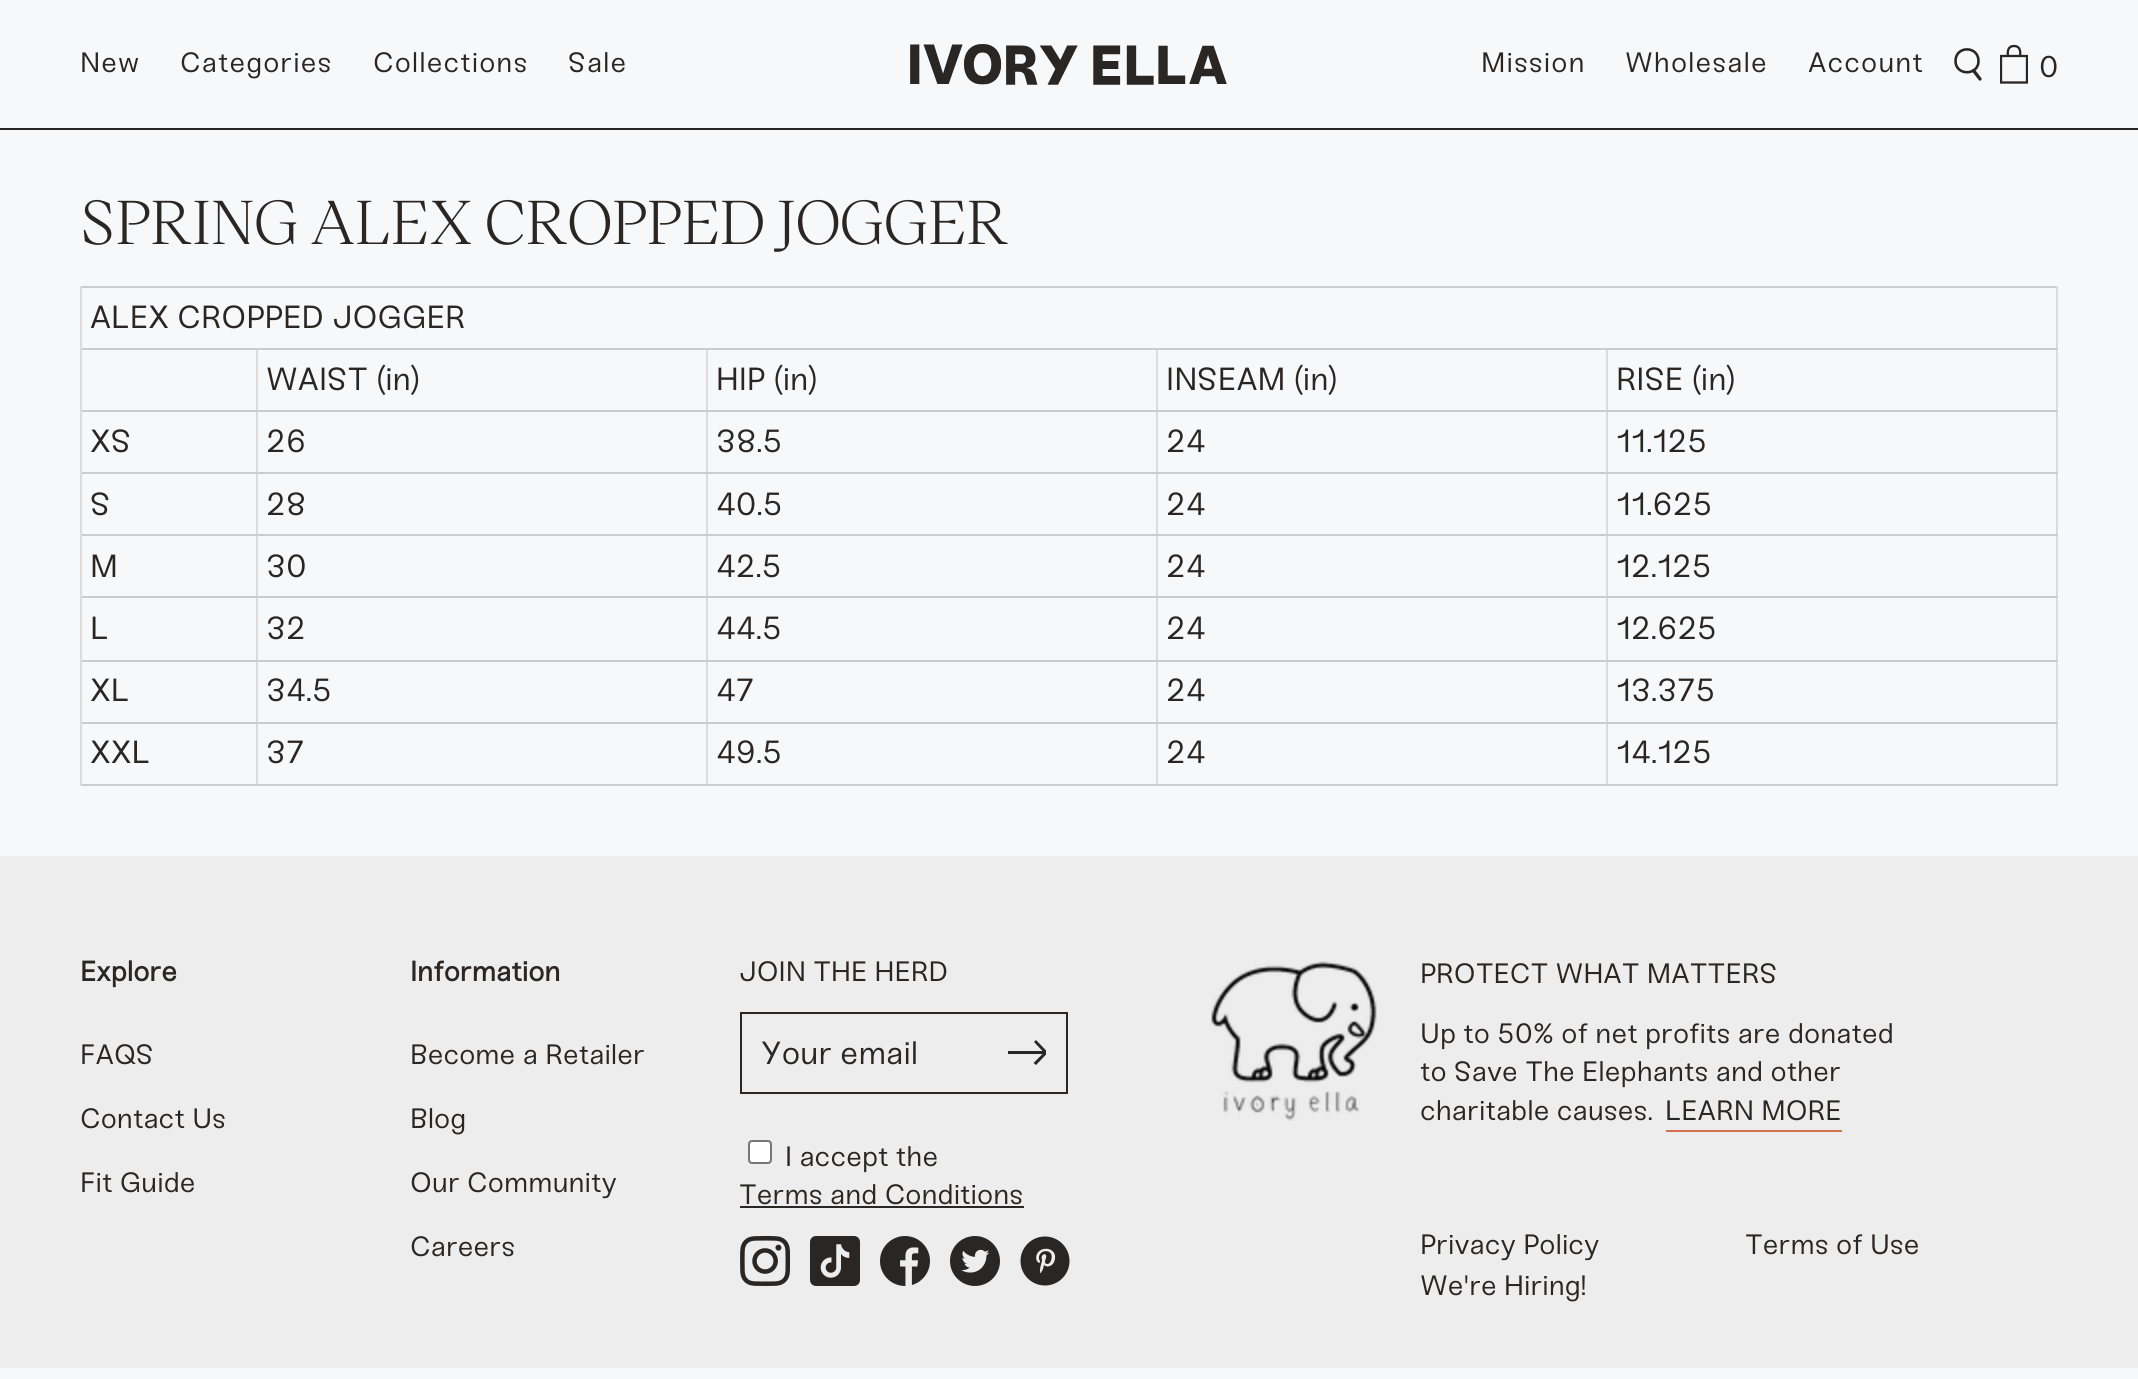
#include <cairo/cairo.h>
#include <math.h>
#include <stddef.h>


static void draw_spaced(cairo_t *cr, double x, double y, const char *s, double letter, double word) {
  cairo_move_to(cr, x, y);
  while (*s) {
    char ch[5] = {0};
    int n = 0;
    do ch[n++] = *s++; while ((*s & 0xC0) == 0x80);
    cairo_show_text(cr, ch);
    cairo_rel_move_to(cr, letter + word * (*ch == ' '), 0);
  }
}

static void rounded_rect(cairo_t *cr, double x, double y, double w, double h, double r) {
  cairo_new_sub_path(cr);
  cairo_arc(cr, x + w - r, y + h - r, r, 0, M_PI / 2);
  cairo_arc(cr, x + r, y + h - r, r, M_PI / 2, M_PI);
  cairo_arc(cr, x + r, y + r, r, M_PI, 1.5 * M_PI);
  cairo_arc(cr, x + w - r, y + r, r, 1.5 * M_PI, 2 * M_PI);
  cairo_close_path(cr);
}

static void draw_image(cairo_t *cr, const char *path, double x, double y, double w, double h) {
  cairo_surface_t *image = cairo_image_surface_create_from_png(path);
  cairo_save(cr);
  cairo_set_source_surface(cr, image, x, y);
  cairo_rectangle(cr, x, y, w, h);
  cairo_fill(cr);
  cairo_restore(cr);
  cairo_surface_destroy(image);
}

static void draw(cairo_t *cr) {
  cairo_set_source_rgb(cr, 247 / 255.0, 248 / 255.0, 249 / 255.0);
  cairo_paint(cr);
  cairo_set_source_rgb(cr, 42 / 255.0, 38 / 255.0, 35 / 255.0);
  cairo_rectangle(cr, 0, 128, 2138, 2);
  cairo_fill(cr);
  draw_image(cr, "images/1.png", 910, 44, 317, 41);
  cairo_new_path(cr);
  cairo_move_to(cr, 1973.5, 70.5);
  cairo_line_to(cr, 1980, 79);
  cairo_set_line_width(cr, 3.3);
  cairo_set_line_cap(cr, CAIRO_LINE_CAP_ROUND);
  cairo_stroke(cr);
  cairo_new_path(cr);
  cairo_move_to(cr, 1978.5, 61);
  cairo_curve_to(cr, 1978.5, 76, 1955.5, 76, 1955.5, 61);
  cairo_curve_to(cr, 1955.5, 45.5, 1978.5, 45.5, 1978.5, 61);
  cairo_close_path(cr);
  cairo_set_line_width(cr, 2.6);
  cairo_set_line_cap(cr, CAIRO_LINE_CAP_BUTT);
  cairo_stroke(cr);
  cairo_save(cr);
  cairo_rectangle(cr, 2000, 44, 28, 40);
  cairo_clip(cr);
  cairo_new_path(cr);
  cairo_move_to(cr, 2001, 56);
  cairo_line_to(cr, 2027, 56);
  cairo_line_to(cr, 2027, 82.5);
  cairo_line_to(cr, 2001, 82.5);
  cairo_close_path(cr);
  cairo_set_line_width(cr, 2.3);
  cairo_stroke(cr);
  cairo_restore(cr);
  cairo_new_path(cr);
  cairo_move_to(cr, 2008, 56.5);
  cairo_curve_to(cr, 2007, 49.5, 2009, 46, 2014, 46);
  cairo_curve_to(cr, 2019, 46, 2021, 49.5, 2020, 56.5);
  cairo_set_line_width(cr, 2.3);
  cairo_stroke(cr);
  cairo_set_source_rgb(cr, 204 / 255.0, 204 / 255.0, 204 / 255.0);
  cairo_rectangle(cr, 80, 286, 1978, 2);
  cairo_fill(cr);
  cairo_set_source_rgb(cr, 220 / 255.0, 220 / 255.0, 220 / 255.0);
  cairo_rectangle(cr, 2056, 348, 2, 438);
  cairo_fill(cr);
  cairo_rectangle(cr, 2056, 286, 2, 64);
  cairo_fill(cr);
  cairo_set_source_rgb(cr, 204 / 255.0, 204 / 255.0, 204 / 255.0);
  cairo_rectangle(cr, 1606, 784, 452, 2);
  cairo_fill(cr);
  cairo_set_source_rgb(cr, 220 / 255.0, 220 / 255.0, 220 / 255.0);
  cairo_rectangle(cr, 1606, 722, 2, 64);
  cairo_fill(cr);
  cairo_set_source_rgb(cr, 204 / 255.0, 204 / 255.0, 204 / 255.0);
  cairo_rectangle(cr, 1606, 722, 452, 2);
  cairo_fill(cr);
  cairo_set_source_rgb(cr, 220 / 255.0, 220 / 255.0, 220 / 255.0);
  cairo_rectangle(cr, 1606, 660, 2, 64);
  cairo_fill(cr);
  cairo_set_source_rgb(cr, 204 / 255.0, 204 / 255.0, 204 / 255.0);
  cairo_rectangle(cr, 1606, 660, 452, 2);
  cairo_fill(cr);
  cairo_set_source_rgb(cr, 220 / 255.0, 220 / 255.0, 220 / 255.0);
  cairo_rectangle(cr, 1606, 596, 2, 66);
  cairo_fill(cr);
  cairo_set_source_rgb(cr, 204 / 255.0, 204 / 255.0, 204 / 255.0);
  cairo_rectangle(cr, 1606, 596, 452, 2);
  cairo_fill(cr);
  cairo_set_source_rgb(cr, 220 / 255.0, 220 / 255.0, 220 / 255.0);
  cairo_rectangle(cr, 1606, 534, 2, 64);
  cairo_fill(cr);
  cairo_set_source_rgb(cr, 204 / 255.0, 204 / 255.0, 204 / 255.0);
  cairo_rectangle(cr, 1606, 534, 452, 2);
  cairo_fill(cr);
  cairo_set_source_rgb(cr, 220 / 255.0, 220 / 255.0, 220 / 255.0);
  cairo_rectangle(cr, 1606, 472, 2, 64);
  cairo_fill(cr);
  cairo_set_source_rgb(cr, 204 / 255.0, 204 / 255.0, 204 / 255.0);
  cairo_rectangle(cr, 1606, 472, 452, 2);
  cairo_fill(cr);
  cairo_set_source_rgb(cr, 220 / 255.0, 220 / 255.0, 220 / 255.0);
  cairo_rectangle(cr, 1606, 410, 2, 64);
  cairo_fill(cr);
  cairo_set_source_rgb(cr, 204 / 255.0, 204 / 255.0, 204 / 255.0);
  cairo_rectangle(cr, 1606, 410, 452, 2);
  cairo_fill(cr);
  cairo_set_source_rgb(cr, 220 / 255.0, 220 / 255.0, 220 / 255.0);
  cairo_rectangle(cr, 1606, 348, 2, 64);
  cairo_fill(cr);
  cairo_set_source_rgb(cr, 204 / 255.0, 204 / 255.0, 204 / 255.0);
  cairo_rectangle(cr, 1156, 784, 452, 2);
  cairo_fill(cr);
  cairo_set_source_rgb(cr, 220 / 255.0, 220 / 255.0, 220 / 255.0);
  cairo_rectangle(cr, 1156, 722, 2, 64);
  cairo_fill(cr);
  cairo_set_source_rgb(cr, 204 / 255.0, 204 / 255.0, 204 / 255.0);
  cairo_rectangle(cr, 1156, 722, 452, 2);
  cairo_fill(cr);
  cairo_set_source_rgb(cr, 220 / 255.0, 220 / 255.0, 220 / 255.0);
  cairo_rectangle(cr, 1156, 660, 2, 64);
  cairo_fill(cr);
  cairo_set_source_rgb(cr, 204 / 255.0, 204 / 255.0, 204 / 255.0);
  cairo_rectangle(cr, 1156, 660, 452, 2);
  cairo_fill(cr);
  cairo_set_source_rgb(cr, 220 / 255.0, 220 / 255.0, 220 / 255.0);
  cairo_rectangle(cr, 1156, 596, 2, 66);
  cairo_fill(cr);
  cairo_set_source_rgb(cr, 204 / 255.0, 204 / 255.0, 204 / 255.0);
  cairo_rectangle(cr, 1156, 596, 452, 2);
  cairo_fill(cr);
  cairo_set_source_rgb(cr, 220 / 255.0, 220 / 255.0, 220 / 255.0);
  cairo_rectangle(cr, 1156, 534, 2, 64);
  cairo_fill(cr);
  cairo_set_source_rgb(cr, 204 / 255.0, 204 / 255.0, 204 / 255.0);
  cairo_rectangle(cr, 1156, 534, 452, 2);
  cairo_fill(cr);
  cairo_set_source_rgb(cr, 220 / 255.0, 220 / 255.0, 220 / 255.0);
  cairo_rectangle(cr, 1156, 472, 2, 64);
  cairo_fill(cr);
  cairo_set_source_rgb(cr, 204 / 255.0, 204 / 255.0, 204 / 255.0);
  cairo_rectangle(cr, 1156, 472, 452, 2);
  cairo_fill(cr);
  cairo_set_source_rgb(cr, 220 / 255.0, 220 / 255.0, 220 / 255.0);
  cairo_rectangle(cr, 1156, 410, 2, 64);
  cairo_fill(cr);
  cairo_set_source_rgb(cr, 204 / 255.0, 204 / 255.0, 204 / 255.0);
  cairo_rectangle(cr, 1156, 410, 452, 2);
  cairo_fill(cr);
  cairo_set_source_rgb(cr, 220 / 255.0, 220 / 255.0, 220 / 255.0);
  cairo_rectangle(cr, 1156, 348, 2, 64);
  cairo_fill(cr);
  cairo_set_source_rgb(cr, 204 / 255.0, 204 / 255.0, 204 / 255.0);
  cairo_rectangle(cr, 706, 784, 452, 2);
  cairo_fill(cr);
  cairo_set_source_rgb(cr, 220 / 255.0, 220 / 255.0, 220 / 255.0);
  cairo_rectangle(cr, 706, 722, 2, 64);
  cairo_fill(cr);
  cairo_set_source_rgb(cr, 204 / 255.0, 204 / 255.0, 204 / 255.0);
  cairo_rectangle(cr, 706, 722, 452, 2);
  cairo_fill(cr);
  cairo_set_source_rgb(cr, 220 / 255.0, 220 / 255.0, 220 / 255.0);
  cairo_rectangle(cr, 706, 660, 2, 64);
  cairo_fill(cr);
  cairo_set_source_rgb(cr, 204 / 255.0, 204 / 255.0, 204 / 255.0);
  cairo_rectangle(cr, 706, 660, 452, 2);
  cairo_fill(cr);
  cairo_set_source_rgb(cr, 220 / 255.0, 220 / 255.0, 220 / 255.0);
  cairo_rectangle(cr, 706, 596, 2, 66);
  cairo_fill(cr);
  cairo_set_source_rgb(cr, 204 / 255.0, 204 / 255.0, 204 / 255.0);
  cairo_rectangle(cr, 706, 596, 452, 2);
  cairo_fill(cr);
  cairo_set_source_rgb(cr, 220 / 255.0, 220 / 255.0, 220 / 255.0);
  cairo_rectangle(cr, 706, 534, 2, 64);
  cairo_fill(cr);
  cairo_set_source_rgb(cr, 204 / 255.0, 204 / 255.0, 204 / 255.0);
  cairo_rectangle(cr, 706, 534, 452, 2);
  cairo_fill(cr);
  cairo_set_source_rgb(cr, 220 / 255.0, 220 / 255.0, 220 / 255.0);
  cairo_rectangle(cr, 706, 472, 2, 64);
  cairo_fill(cr);
  cairo_set_source_rgb(cr, 204 / 255.0, 204 / 255.0, 204 / 255.0);
  cairo_rectangle(cr, 706, 472, 452, 2);
  cairo_fill(cr);
  cairo_set_source_rgb(cr, 220 / 255.0, 220 / 255.0, 220 / 255.0);
  cairo_rectangle(cr, 706, 410, 2, 64);
  cairo_fill(cr);
  cairo_set_source_rgb(cr, 204 / 255.0, 204 / 255.0, 204 / 255.0);
  cairo_rectangle(cr, 706, 410, 452, 2);
  cairo_fill(cr);
  cairo_set_source_rgb(cr, 220 / 255.0, 220 / 255.0, 220 / 255.0);
  cairo_rectangle(cr, 706, 348, 2, 64);
  cairo_fill(cr);
  cairo_set_source_rgb(cr, 204 / 255.0, 204 / 255.0, 204 / 255.0);
  cairo_rectangle(cr, 256, 784, 452, 2);
  cairo_fill(cr);
  cairo_set_source_rgb(cr, 220 / 255.0, 220 / 255.0, 220 / 255.0);
  cairo_rectangle(cr, 256, 722, 2, 64);
  cairo_fill(cr);
  cairo_set_source_rgb(cr, 204 / 255.0, 204 / 255.0, 204 / 255.0);
  cairo_rectangle(cr, 256, 722, 452, 2);
  cairo_fill(cr);
  cairo_set_source_rgb(cr, 220 / 255.0, 220 / 255.0, 220 / 255.0);
  cairo_rectangle(cr, 256, 660, 2, 64);
  cairo_fill(cr);
  cairo_set_source_rgb(cr, 204 / 255.0, 204 / 255.0, 204 / 255.0);
  cairo_rectangle(cr, 256, 660, 452, 2);
  cairo_fill(cr);
  cairo_set_source_rgb(cr, 220 / 255.0, 220 / 255.0, 220 / 255.0);
  cairo_rectangle(cr, 256, 596, 2, 66);
  cairo_fill(cr);
  cairo_set_source_rgb(cr, 204 / 255.0, 204 / 255.0, 204 / 255.0);
  cairo_rectangle(cr, 256, 596, 452, 2);
  cairo_fill(cr);
  cairo_set_source_rgb(cr, 220 / 255.0, 220 / 255.0, 220 / 255.0);
  cairo_rectangle(cr, 256, 534, 2, 64);
  cairo_fill(cr);
  cairo_set_source_rgb(cr, 204 / 255.0, 204 / 255.0, 204 / 255.0);
  cairo_rectangle(cr, 256, 534, 452, 2);
  cairo_fill(cr);
  cairo_set_source_rgb(cr, 220 / 255.0, 220 / 255.0, 220 / 255.0);
  cairo_rectangle(cr, 256, 472, 2, 64);
  cairo_fill(cr);
  cairo_set_source_rgb(cr, 204 / 255.0, 204 / 255.0, 204 / 255.0);
  cairo_rectangle(cr, 256, 472, 452, 2);
  cairo_fill(cr);
  cairo_set_source_rgb(cr, 220 / 255.0, 220 / 255.0, 220 / 255.0);
  cairo_rectangle(cr, 256, 410, 2, 64);
  cairo_fill(cr);
  cairo_set_source_rgb(cr, 204 / 255.0, 204 / 255.0, 204 / 255.0);
  cairo_rectangle(cr, 256, 410, 452, 2);
  cairo_fill(cr);
  cairo_set_source_rgb(cr, 220 / 255.0, 220 / 255.0, 220 / 255.0);
  cairo_rectangle(cr, 256, 348, 2, 64);
  cairo_fill(cr);
  cairo_set_source_rgb(cr, 204 / 255.0, 204 / 255.0, 204 / 255.0);
  cairo_rectangle(cr, 80, 784, 178, 2);
  cairo_fill(cr);
  cairo_set_source_rgb(cr, 220 / 255.0, 220 / 255.0, 220 / 255.0);
  cairo_rectangle(cr, 80, 722, 2, 64);
  cairo_fill(cr);
  cairo_set_source_rgb(cr, 204 / 255.0, 204 / 255.0, 204 / 255.0);
  cairo_rectangle(cr, 80, 722, 178, 2);
  cairo_fill(cr);
  cairo_set_source_rgb(cr, 220 / 255.0, 220 / 255.0, 220 / 255.0);
  cairo_rectangle(cr, 80, 660, 2, 64);
  cairo_fill(cr);
  cairo_set_source_rgb(cr, 204 / 255.0, 204 / 255.0, 204 / 255.0);
  cairo_rectangle(cr, 80, 660, 178, 2);
  cairo_fill(cr);
  cairo_set_source_rgb(cr, 220 / 255.0, 220 / 255.0, 220 / 255.0);
  cairo_rectangle(cr, 80, 596, 2, 66);
  cairo_fill(cr);
  cairo_set_source_rgb(cr, 204 / 255.0, 204 / 255.0, 204 / 255.0);
  cairo_rectangle(cr, 80, 596, 178, 2);
  cairo_fill(cr);
  cairo_set_source_rgb(cr, 220 / 255.0, 220 / 255.0, 220 / 255.0);
  cairo_rectangle(cr, 80, 534, 2, 64);
  cairo_fill(cr);
  cairo_set_source_rgb(cr, 204 / 255.0, 204 / 255.0, 204 / 255.0);
  cairo_rectangle(cr, 80, 534, 178, 2);
  cairo_fill(cr);
  cairo_set_source_rgb(cr, 220 / 255.0, 220 / 255.0, 220 / 255.0);
  cairo_rectangle(cr, 80, 472, 2, 64);
  cairo_fill(cr);
  cairo_set_source_rgb(cr, 204 / 255.0, 204 / 255.0, 204 / 255.0);
  cairo_rectangle(cr, 80, 472, 178, 2);
  cairo_fill(cr);
  cairo_set_source_rgb(cr, 220 / 255.0, 220 / 255.0, 220 / 255.0);
  cairo_rectangle(cr, 80, 410, 2, 64);
  cairo_fill(cr);
  cairo_set_source_rgb(cr, 204 / 255.0, 204 / 255.0, 204 / 255.0);
  cairo_rectangle(cr, 80, 410, 178, 2);
  cairo_fill(cr);
  cairo_set_source_rgb(cr, 220 / 255.0, 220 / 255.0, 220 / 255.0);
  cairo_rectangle(cr, 80, 348, 2, 64);
  cairo_fill(cr);
  cairo_set_source_rgb(cr, 204 / 255.0, 204 / 255.0, 204 / 255.0);
  cairo_rectangle(cr, 80, 348, 1978, 2);
  cairo_fill(cr);
  cairo_set_source_rgb(cr, 220 / 255.0, 220 / 255.0, 220 / 255.0);
  cairo_rectangle(cr, 80, 286, 2, 64);
  cairo_fill(cr);
  cairo_set_source_rgb(cr, 237 / 255.0, 237 / 255.0, 237 / 255.0);
  cairo_rectangle(cr, 0, 856, 2138, 512);
  cairo_fill(cr);
  cairo_rectangle(cr, 741, 1013, 326, 80);
  cairo_set_source_rgb(cr, 42 / 255.0, 38 / 255.0, 35 / 255.0);
  cairo_set_line_width(cr, 2);
  cairo_stroke(cr);
  cairo_save(cr);
  cairo_rectangle(cr, 1008, 1040, 38, 26);
  cairo_clip(cr);
  cairo_set_fill_rule(cr, CAIRO_FILL_RULE_EVEN_ODD);
  cairo_new_path(cr);
  cairo_move_to(cr, 1036, 1040);
  cairo_line_to(cr, 1034, 1042);
  cairo_line_to(cr, 1042.5, 1051);
  cairo_line_to(cr, 1008, 1051);
  cairo_line_to(cr, 1008, 1054);
  cairo_line_to(cr, 1042.5, 1054);
  cairo_line_to(cr, 1033.5, 1063);
  cairo_line_to(cr, 1036, 1065);
  cairo_line_to(cr, 1048, 1052.5);
  cairo_close_path(cr);
  cairo_fill(cr);
  cairo_restore(cr);
  cairo_set_source_rgb(cr, 1, 1, 1);
  rounded_rect(cr, 749, 1141, 22, 22, 3);
  cairo_fill_preserve(cr);
  cairo_set_source_rgb(cr, 118 / 255.0, 118 / 255.0, 118 / 255.0);
  cairo_stroke(cr);
  cairo_set_source_rgb(cr, 42 / 255.0, 38 / 255.0, 35 / 255.0);
  cairo_rectangle(cr, 740, 1206, 284, 2);
  cairo_fill(cr);
  draw_image(cr, "images/2.png", 740, 1236, 50, 50);
  draw_image(cr, "images/3.png", 810, 1236, 50, 50);
  draw_image(cr, "images/4.png", 880, 1236, 50, 50);
  draw_image(cr, "images/5.png", 950, 1236, 50, 50);
  draw_image(cr, "images/6.png", 1020, 1236, 50, 50);
  draw_image(cr, "images/7.png", 1211, 961, 166, 160);
  cairo_set_source_rgb(cr, 213 / 255.0, 112 / 255.0, 79 / 255.0);
  cairo_rectangle(cr, 1666, 1130, 176, 2);
  cairo_fill(cr);
  cairo_select_font_face(cr, "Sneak", CAIRO_FONT_SLANT_NORMAL, CAIRO_FONT_WEIGHT_NORMAL);
  cairo_set_font_size(cr, 28);
  cairo_set_source_rgb(cr, 42 / 255.0, 38 / 255.0, 35 / 255.0);
  draw_spaced(cr, 80, 72, "New", 1, 0);
  draw_spaced(cr, 180, 72, "Categories", 1, 0);
  draw_spaced(cr, 373, 72, "Collections", 1, 0);
  draw_spaced(cr, 568, 72, "Sale", 1, 0);
  draw_spaced(cr, 1481, 72, "Mission", 1, 0);
  draw_spaced(cr, 1625, 72, "Wholesale", 1, 0);
  draw_spaced(cr, 1808, 72, "Account", 1, 0);
  cairo_set_font_size(cr, 30);
  cairo_move_to(cr, 2039, 77);
  cairo_show_text(cr, "0");
  cairo_select_font_face(cr, "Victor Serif", CAIRO_FONT_SLANT_NORMAL, CAIRO_FONT_WEIGHT_NORMAL);
  cairo_set_font_size(cr, 60);
  cairo_move_to(cr, 80, 244);
  cairo_show_text(cr, "SPRING ALEX CROPPED JOGGER");
  cairo_select_font_face(cr, "Sneak", CAIRO_FONT_SLANT_NORMAL, CAIRO_FONT_WEIGHT_NORMAL);
  cairo_set_font_size(cr, 32);
  cairo_move_to(cr, 90, 328);
  cairo_show_text(cr, "ALEX CROPPED JOGGER");
  cairo_move_to(cr, 266, 390);
  cairo_show_text(cr, "WAIST (in)");
  cairo_move_to(cr, 716, 390);
  cairo_show_text(cr, "HIP (in)");
  cairo_move_to(cr, 1166, 390);
  cairo_show_text(cr, "INSEAM (in)");
  cairo_move_to(cr, 1616, 390);
  cairo_show_text(cr, "RISE (in)");
  cairo_move_to(cr, 90, 452);
  cairo_show_text(cr, "XS");
  cairo_move_to(cr, 266, 452);
  cairo_show_text(cr, "26");
  cairo_move_to(cr, 716, 452);
  cairo_show_text(cr, "38.5");
  cairo_move_to(cr, 1166, 452);
  cairo_show_text(cr, "24");
  cairo_move_to(cr, 1616, 452);
  cairo_show_text(cr, "11.125");
  cairo_move_to(cr, 90, 515);
  cairo_show_text(cr, "S");
  cairo_move_to(cr, 266, 515);
  cairo_show_text(cr, "28");
  cairo_move_to(cr, 716, 515);
  cairo_show_text(cr, "40.5");
  cairo_move_to(cr, 1166, 515);
  cairo_show_text(cr, "24");
  cairo_move_to(cr, 1616, 515);
  cairo_show_text(cr, "11.625");
  cairo_move_to(cr, 90, 577);
  cairo_show_text(cr, "M");
  cairo_move_to(cr, 266, 577);
  cairo_show_text(cr, "30");
  cairo_move_to(cr, 716, 577);
  cairo_show_text(cr, "42.5");
  cairo_move_to(cr, 1166, 577);
  cairo_show_text(cr, "24");
  cairo_move_to(cr, 1616, 577);
  cairo_show_text(cr, "12.125");
  cairo_move_to(cr, 90, 639);
  cairo_show_text(cr, "L");
  cairo_move_to(cr, 266, 639);
  cairo_show_text(cr, "32");
  cairo_move_to(cr, 716, 639);
  cairo_show_text(cr, "44.5");
  cairo_move_to(cr, 1166, 639);
  cairo_show_text(cr, "24");
  cairo_move_to(cr, 1616, 639);
  cairo_show_text(cr, "12.625");
  cairo_move_to(cr, 90, 701);
  cairo_show_text(cr, "XL");
  cairo_move_to(cr, 266, 701);
  cairo_show_text(cr, "34.5");
  cairo_move_to(cr, 716, 701);
  cairo_show_text(cr, "47");
  cairo_move_to(cr, 1166, 701);
  cairo_show_text(cr, "24");
  cairo_move_to(cr, 1616, 701);
  cairo_show_text(cr, "13.375");
  cairo_move_to(cr, 90, 763);
  cairo_show_text(cr, "XXL");
  cairo_move_to(cr, 266, 763);
  cairo_show_text(cr, "37");
  cairo_move_to(cr, 716, 763);
  cairo_show_text(cr, "49.5");
  cairo_move_to(cr, 1166, 763);
  cairo_show_text(cr, "24");
  cairo_move_to(cr, 1616, 763);
  cairo_show_text(cr, "14.125");
  cairo_select_font_face(cr, "Sneak", CAIRO_FONT_SLANT_NORMAL, CAIRO_FONT_WEIGHT_BOLD);
  cairo_set_font_size(cr, 28);
  cairo_move_to(cr, 80, 981);
  cairo_show_text(cr, "Explore");
  cairo_select_font_face(cr, "Sneak", CAIRO_FONT_SLANT_NORMAL, CAIRO_FONT_WEIGHT_NORMAL);
  cairo_move_to(cr, 80, 1064);
  cairo_show_text(cr, "FAQS");
  cairo_move_to(cr, 80, 1128);
  cairo_show_text(cr, "Contact Us");
  cairo_move_to(cr, 80, 1192);
  cairo_show_text(cr, "Fit Guide");
  cairo_select_font_face(cr, "Sneak", CAIRO_FONT_SLANT_NORMAL, CAIRO_FONT_WEIGHT_BOLD);
  cairo_move_to(cr, 410, 981);
  cairo_show_text(cr, "Information");
  cairo_select_font_face(cr, "Sneak", CAIRO_FONT_SLANT_NORMAL, CAIRO_FONT_WEIGHT_NORMAL);
  cairo_move_to(cr, 410, 1064);
  cairo_show_text(cr, "Become a Retailer");
  cairo_move_to(cr, 410, 1128);
  cairo_show_text(cr, "Blog");
  cairo_move_to(cr, 410, 1192);
  cairo_show_text(cr, "Our Community");
  cairo_move_to(cr, 410, 1256);
  cairo_show_text(cr, "Careers");
  cairo_move_to(cr, 739, 981);
  cairo_show_text(cr, "JOIN THE HERD");
  cairo_set_font_size(cr, 32);
  cairo_move_to(cr, 761, 1064);
  cairo_show_text(cr, "Your email");
  cairo_set_font_size(cr, 28);
  cairo_move_to(cr, 785, 1166);
  cairo_show_text(cr, "I accept the");
  cairo_move_to(cr, 739, 1204);
  cairo_show_text(cr, "Terms and Conditions");
  cairo_move_to(cr, 1420, 983);
  cairo_show_text(cr, "PROTECT WHAT MATTERS");
  cairo_move_to(cr, 1420, 1043);
  cairo_show_text(cr, "Up to 50% of net profits are donated");
  cairo_move_to(cr, 1420, 1081);
  cairo_show_text(cr, "to Save The Elephants and other");
  cairo_move_to(cr, 1420, 1120);
  cairo_show_text(cr, "charitable causes.");
  cairo_move_to(cr, 1665, 1120);
  cairo_show_text(cr, "LEARN MORE");
  cairo_move_to(cr, 1420, 1254);
  cairo_show_text(cr, "Privacy Policy");
  cairo_move_to(cr, 1745, 1254);
  cairo_show_text(cr, "Terms of Use");
  cairo_move_to(cr, 1420, 1295);
  cairo_show_text(cr, "We're Hiring!");
}

int main(void) {
  cairo_surface_t *surface = cairo_image_surface_create(CAIRO_FORMAT_RGB24, 2138, 1379);
  cairo_t *cr = cairo_create(surface);
  cairo_font_options_t *options = cairo_font_options_create();
  cairo_font_options_set_hint_metrics(options, CAIRO_HINT_METRICS_OFF);
  cairo_font_options_set_hint_style(options, CAIRO_HINT_STYLE_NONE);
  cairo_set_font_options(cr, options);
  cairo_set_miter_limit(cr, 4);
  draw(cr);
  cairo_surface_write_to_png(surface, "out.png");
  cairo_font_options_destroy(options);
  cairo_destroy(cr);
  cairo_surface_destroy(surface);
  return 0;
}
